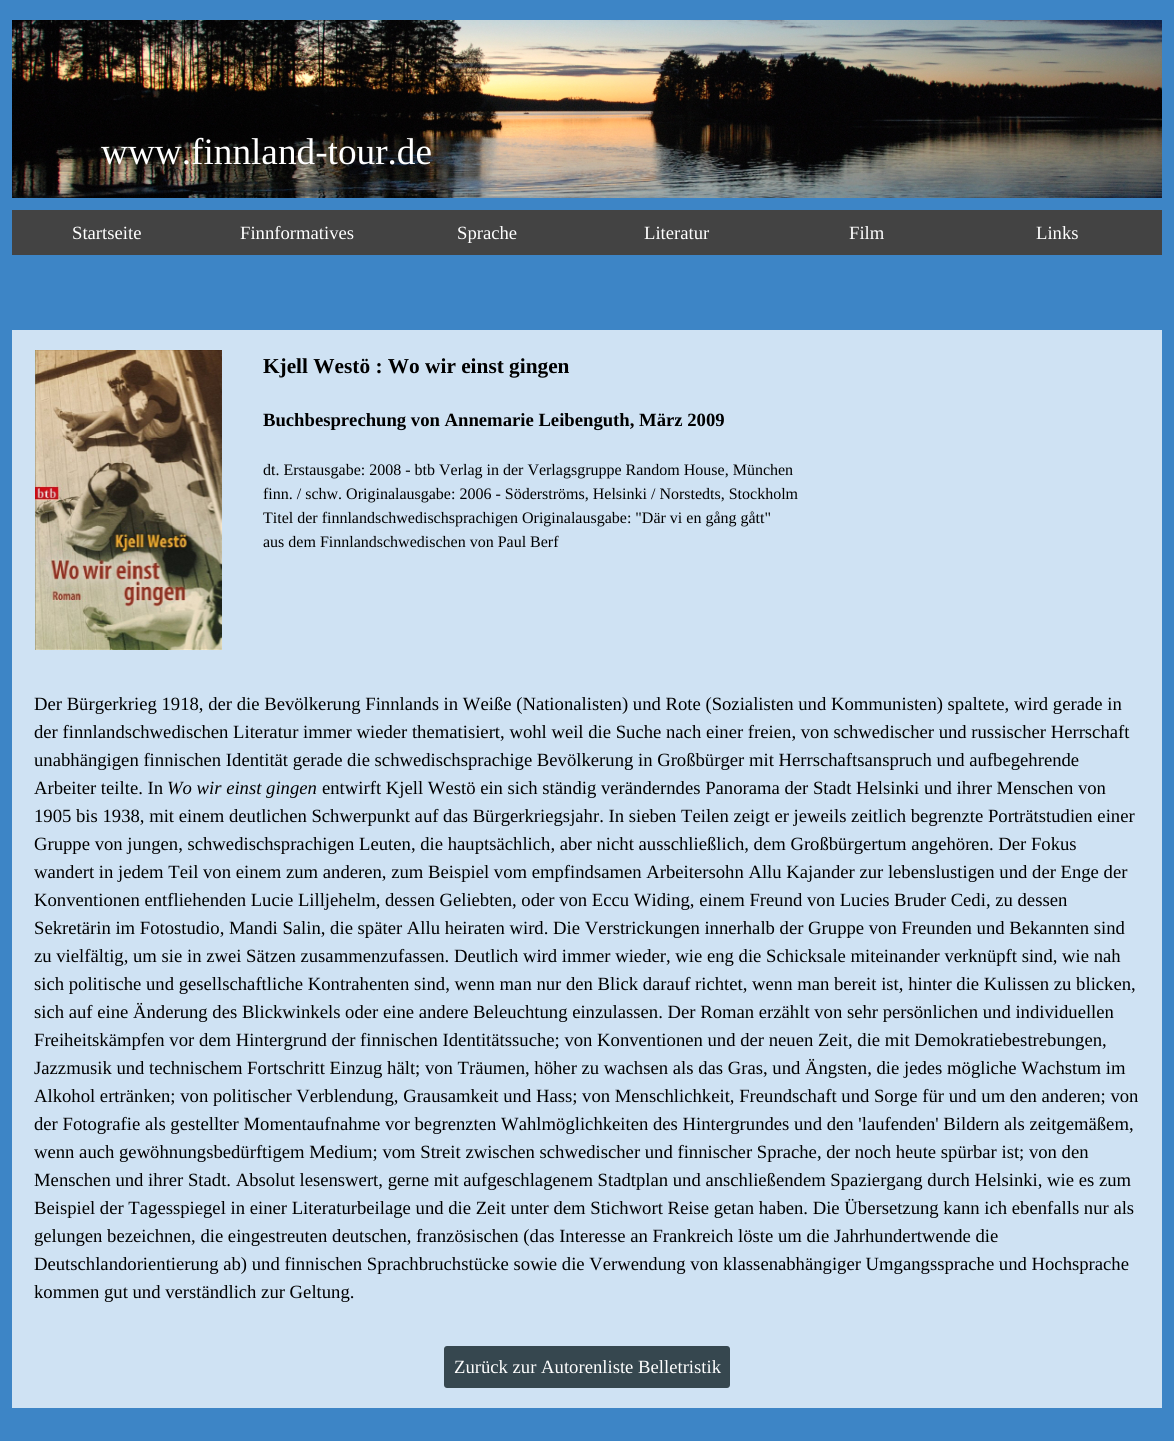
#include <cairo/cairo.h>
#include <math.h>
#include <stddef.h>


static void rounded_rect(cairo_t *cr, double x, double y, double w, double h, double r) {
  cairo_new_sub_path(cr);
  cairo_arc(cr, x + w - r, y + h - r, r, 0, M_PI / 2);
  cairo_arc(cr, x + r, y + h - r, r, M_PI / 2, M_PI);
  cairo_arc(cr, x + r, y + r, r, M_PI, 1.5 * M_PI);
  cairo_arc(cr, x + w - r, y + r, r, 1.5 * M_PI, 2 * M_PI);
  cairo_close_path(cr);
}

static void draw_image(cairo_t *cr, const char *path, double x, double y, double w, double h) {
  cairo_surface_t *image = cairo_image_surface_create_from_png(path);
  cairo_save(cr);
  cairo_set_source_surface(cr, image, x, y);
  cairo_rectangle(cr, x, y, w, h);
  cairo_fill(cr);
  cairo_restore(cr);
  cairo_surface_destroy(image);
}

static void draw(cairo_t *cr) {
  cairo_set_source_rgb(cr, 61 / 255.0, 133 / 255.0, 198 / 255.0);
  cairo_paint(cr);
  draw_image(cr, "images/1.png", 12, 20, 1150, 178);
  cairo_set_source_rgb(cr, 67 / 255.0, 67 / 255.0, 67 / 255.0);
  cairo_rectangle(cr, 12, 210, 1150, 45);
  cairo_fill(cr);
  cairo_set_source_rgb(cr, 207 / 255.0, 226 / 255.0, 243 / 255.0);
  cairo_rectangle(cr, 12, 330, 1150, 1078);
  cairo_fill(cr);
  draw_image(cr, "images/2.png", 35, 350, 187, 300);
  cairo_set_source_rgb(cr, 54 / 255.0, 71 / 255.0, 79 / 255.0);
  rounded_rect(cr, 444, 1346, 286, 42, 3);
  cairo_fill(cr);
  cairo_select_font_face(cr, "Liberation Serif", CAIRO_FONT_SLANT_NORMAL, CAIRO_FONT_WEIGHT_NORMAL);
  cairo_set_font_size(cr, 37.25);
  cairo_set_source_rgb(cr, 1, 1, 1);
  cairo_move_to(cr, 101, 164);
  cairo_show_text(cr, "www.finnland-tour.de");
  cairo_set_font_size(cr, 18.67);
  cairo_move_to(cr, 72, 239);
  cairo_show_text(cr, "Startseite");
  cairo_move_to(cr, 240, 239);
  cairo_show_text(cr, "Finnformatives");
  cairo_move_to(cr, 457, 239);
  cairo_show_text(cr, "Sprache");
  cairo_move_to(cr, 644, 239);
  cairo_show_text(cr, "Literatur");
  cairo_move_to(cr, 849, 239);
  cairo_show_text(cr, "Film");
  cairo_move_to(cr, 1036, 239);
  cairo_show_text(cr, "Links");
  cairo_select_font_face(cr, "Liberation Serif", CAIRO_FONT_SLANT_NORMAL, CAIRO_FONT_WEIGHT_BOLD);
  cairo_set_font_size(cr, 21.3);
  cairo_set_source_rgb(cr, 0, 0, 0);
  cairo_move_to(cr, 263, 373);
  cairo_show_text(cr, "Kjell Westö : Wo wir einst gingen");
  cairo_set_font_size(cr, 18.67);
  cairo_move_to(cr, 263, 426);
  cairo_show_text(cr, "Buchbesprechung von Annemarie Leibenguth, März 2009");
  cairo_select_font_face(cr, "Liberation Serif", CAIRO_FONT_SLANT_NORMAL, CAIRO_FONT_WEIGHT_NORMAL);
  cairo_set_font_size(cr, 16);
  cairo_move_to(cr, 263, 475);
  cairo_show_text(cr, "dt. Erstausgabe: 2008 - btb Verlag in der Verlagsgruppe Random House, München");
  cairo_move_to(cr, 263, 499);
  cairo_show_text(cr, "finn. / schw. Originalausgabe: 2006 - Söderströms, Helsinki / Norstedts, Stockholm");
  cairo_move_to(cr, 263, 523);
  cairo_show_text(cr, "Titel der finnlandschwedischsprachigen Originalausgabe: \"Där vi en gång gått\"");
  cairo_move_to(cr, 263, 547);
  cairo_show_text(cr, "aus dem Finnlandschwedischen von Paul Berf");
  cairo_set_font_size(cr, 18.67);
  cairo_move_to(cr, 34, 710);
  cairo_show_text(cr, "Der Bürgerkrieg 1918, der die Bevölkerung Finnlands in Weiße (Nationalisten) und Rote (Sozialisten und Kommunisten) spaltete, wird gerade in");
  cairo_move_to(cr, 34, 738);
  cairo_show_text(cr, "der finnlandschwedischen Literatur immer wieder thematisiert, wohl weil die Suche nach einer freien, von schwedischer und russischer Herrschaft");
  cairo_move_to(cr, 34, 766);
  cairo_show_text(cr, "unabhängigen finnischen Identität gerade die schwedischsprachige Bevölkerung in Großbürger mit Herrschaftsanspruch und aufbegehrende");
  cairo_move_to(cr, 34, 794);
  cairo_show_text(cr, "Arbeiter teilte. In");
  cairo_select_font_face(cr, "Liberation Serif", CAIRO_FONT_SLANT_ITALIC, CAIRO_FONT_WEIGHT_NORMAL);
  cairo_move_to(cr, 167, 794);
  cairo_show_text(cr, "Wo wir einst gingen");
  cairo_select_font_face(cr, "Liberation Serif", CAIRO_FONT_SLANT_NORMAL, CAIRO_FONT_WEIGHT_NORMAL);
  cairo_move_to(cr, 322, 794);
  cairo_show_text(cr, "entwirft Kjell Westö ein sich ständig veränderndes Panorama der Stadt Helsinki und ihrer Menschen von");
  cairo_move_to(cr, 34, 822);
  cairo_show_text(cr, "1905 bis 1938, mit einem deutlichen Schwerpunkt auf das Bürgerkriegsjahr. In sieben Teilen zeigt er jeweils zeitlich begrenzte Porträtstudien einer");
  cairo_move_to(cr, 34, 850);
  cairo_show_text(cr, "Gruppe von jungen, schwedischsprachigen Leuten, die hauptsächlich, aber nicht ausschließlich, dem Großbürgertum angehören. Der Fokus");
  cairo_move_to(cr, 34, 878);
  cairo_show_text(cr, "wandert in jedem Teil von einem zum anderen, zum Beispiel vom empfindsamen Arbeitersohn Allu Kajander zur lebenslustigen und der Enge der");
  cairo_move_to(cr, 34, 906);
  cairo_show_text(cr, "Konventionen entfliehenden Lucie Lilljehelm, dessen Geliebten, oder von Eccu Widing, einem Freund von Lucies Bruder Cedi, zu dessen");
  cairo_move_to(cr, 34, 934);
  cairo_show_text(cr, "Sekretärin im Fotostudio, Mandi Salin, die später Allu heiraten wird. Die Verstrickungen innerhalb der Gruppe von Freunden und Bekannten sind");
  cairo_move_to(cr, 34, 962);
  cairo_show_text(cr, "zu vielfältig, um sie in zwei Sätzen zusammenzufassen. Deutlich wird immer wieder, wie eng die Schicksale miteinander verknüpft sind, wie nah");
  cairo_move_to(cr, 34, 990);
  cairo_show_text(cr, "sich politische und gesellschaftliche Kontrahenten sind, wenn man nur den Blick darauf richtet, wenn man bereit ist, hinter die Kulissen zu blicken,");
  cairo_move_to(cr, 34, 1018);
  cairo_show_text(cr, "sich auf eine Änderung des Blickwinkels oder eine andere Beleuchtung einzulassen. Der Roman erzählt von sehr persönlichen und individuellen");
  cairo_move_to(cr, 34, 1046);
  cairo_show_text(cr, "Freiheitskämpfen vor dem Hintergrund der finnischen Identitätssuche; von Konventionen und der neuen Zeit, die mit Demokratiebestrebungen,");
  cairo_move_to(cr, 34, 1074);
  cairo_show_text(cr, "Jazzmusik und technischem Fortschritt Einzug hält; von Träumen, höher zu wachsen als das Gras, und Ängsten, die jedes mögliche Wachstum im");
  cairo_move_to(cr, 34, 1102);
  cairo_show_text(cr, "Alkohol ertränken; von politischer Verblendung, Grausamkeit und Hass; von Menschlichkeit, Freundschaft und Sorge für und um den anderen; von");
  cairo_move_to(cr, 34, 1130);
  cairo_show_text(cr, "der Fotografie als gestellter Momentaufnahme vor begrenzten Wahlmöglichkeiten des Hintergrundes und den 'laufenden' Bildern als zeitgemäßem,");
  cairo_move_to(cr, 34, 1158);
  cairo_show_text(cr, "wenn auch gewöhnungsbedürftigem Medium; vom Streit zwischen schwedischer und finnischer Sprache, der noch heute spürbar ist; von den");
  cairo_move_to(cr, 34, 1186);
  cairo_show_text(cr, "Menschen und ihrer Stadt. Absolut lesenswert, gerne mit aufgeschlagenem Stadtplan und anschließendem Spaziergang durch Helsinki, wie es zum");
  cairo_move_to(cr, 34, 1214);
  cairo_show_text(cr, "Beispiel der Tagesspiegel in einer Literaturbeilage und die Zeit unter dem Stichwort Reise getan haben. Die Übersetzung kann ich ebenfalls nur als");
  cairo_move_to(cr, 34, 1242);
  cairo_show_text(cr, "gelungen bezeichnen, die eingestreuten deutschen, französischen (das Interesse an Frankreich löste um die Jahrhundertwende die");
  cairo_move_to(cr, 34, 1270);
  cairo_show_text(cr, "Deutschlandorientierung ab) und finnischen Sprachbruchstücke sowie die Verwendung von klassenabhängiger Umgangssprache und Hochsprache");
  cairo_move_to(cr, 34, 1298);
  cairo_show_text(cr, "kommen gut und verständlich zur Geltung.");
  cairo_set_source_rgb(cr, 1, 1, 1);
  cairo_move_to(cr, 454, 1373);
  cairo_show_text(cr, "Zurück zur Autorenliste Belletristik");
}

int main(void) {
  cairo_surface_t *surface = cairo_image_surface_create(CAIRO_FORMAT_RGB24, 1174, 1441);
  cairo_t *cr = cairo_create(surface);
  cairo_font_options_t *options = cairo_font_options_create();
  cairo_font_options_set_hint_metrics(options, CAIRO_HINT_METRICS_OFF);
  cairo_font_options_set_hint_style(options, CAIRO_HINT_STYLE_NONE);
  cairo_set_font_options(cr, options);
  cairo_set_miter_limit(cr, 4);
  draw(cr);
  cairo_surface_write_to_png(surface, "out.png");
  cairo_font_options_destroy(options);
  cairo_destroy(cr);
  cairo_surface_destroy(surface);
  return 0;
}
